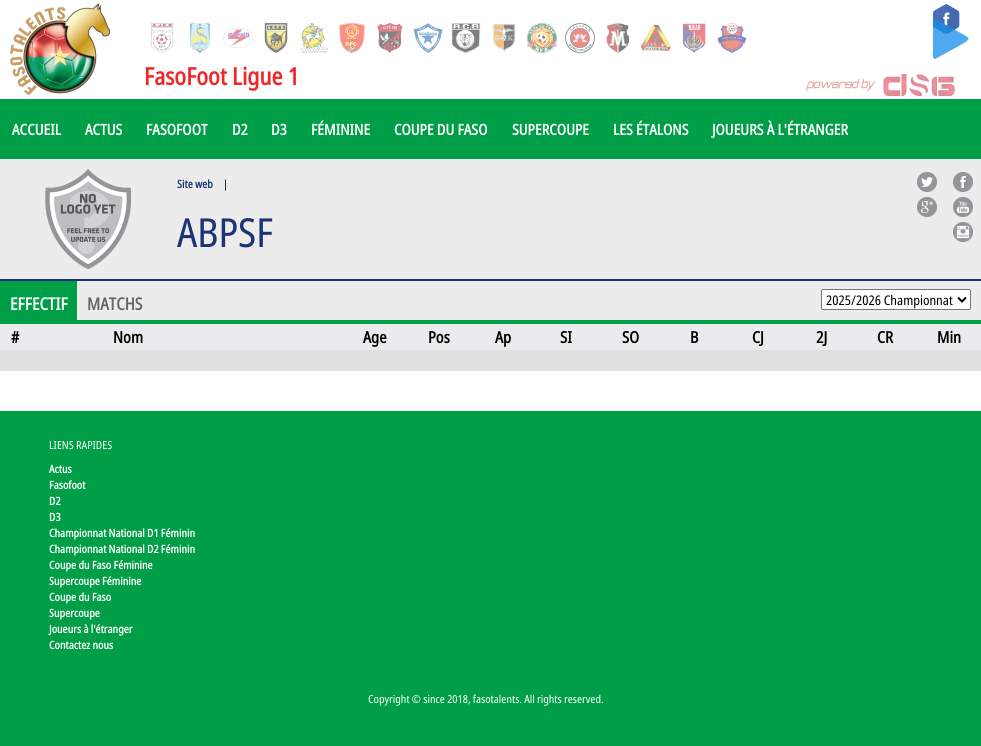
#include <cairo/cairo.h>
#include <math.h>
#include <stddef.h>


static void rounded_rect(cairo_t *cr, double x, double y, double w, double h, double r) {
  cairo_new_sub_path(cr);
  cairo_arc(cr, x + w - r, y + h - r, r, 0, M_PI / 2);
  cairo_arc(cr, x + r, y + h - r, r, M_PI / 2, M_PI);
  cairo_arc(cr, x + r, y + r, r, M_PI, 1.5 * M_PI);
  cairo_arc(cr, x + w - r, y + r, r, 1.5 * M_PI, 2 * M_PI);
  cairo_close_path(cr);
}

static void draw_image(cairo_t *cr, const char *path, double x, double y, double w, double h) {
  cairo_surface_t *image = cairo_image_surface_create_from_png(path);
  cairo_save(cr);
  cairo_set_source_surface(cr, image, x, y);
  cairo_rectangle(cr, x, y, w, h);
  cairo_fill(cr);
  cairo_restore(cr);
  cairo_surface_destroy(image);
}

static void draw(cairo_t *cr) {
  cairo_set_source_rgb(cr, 1, 1, 1);
  cairo_paint(cr);
  draw_image(cr, "images/1.png", 10, 3, 100, 92);
  draw_image(cr, "images/2.png", 933, 4, 27, 30);
  draw_image(cr, "images/3.png", 150, 23, 24, 30);
  draw_image(cr, "images/4.png", 190, 23, 20, 30);
  draw_image(cr, "images/5.png", 223, 28, 30, 20);
  draw_image(cr, "images/6.png", 264, 23, 24, 30);
  draw_image(cr, "images/7.png", 300, 23, 28, 30);
  draw_image(cr, "images/8.png", 339, 23, 26, 30);
  draw_image(cr, "images/9.png", 377, 23, 26, 30);
  draw_image(cr, "images/10.png", 413, 23, 30, 30);
  draw_image(cr, "images/11.png", 451, 23, 30, 30);
  draw_image(cr, "images/12.png", 492, 24, 24, 28);
  draw_image(cr, "images/13.png", 527, 23, 30, 30);
  draw_image(cr, "images/14.png", 565, 23, 30, 30);
  draw_image(cr, "images/15.png", 606, 23, 24, 30);
  draw_image(cr, "images/16.png", 641, 24, 30, 27);
  draw_image(cr, "images/17.png", 682, 23, 24, 30);
  draw_image(cr, "images/18.png", 717, 23, 30, 30);
  cairo_set_source_rgba(cr, 20 / 255.0, 141 / 255.0, 234 / 255.0, 0.75);
  cairo_new_path(cr);
  cairo_move_to(cr, 935, 19);
  cairo_curve_to(cr, 932, 19, 933, 26, 933, 27);
  cairo_line_to(cr, 933, 51);
  cairo_curve_to(cr, 933, 52, 932, 59, 935, 59);
  cairo_line_to(cr, 957, 47);
  cairo_curve_to(cr, 974, 37, 972, 40, 952, 28);
  cairo_close_path(cr);
  cairo_fill(cr);
  draw_image(cr, "images/19.png", 806, 74, 149, 22);
  cairo_set_source_rgb(cr, 0, 159 / 255.0, 71 / 255.0);
  cairo_rectangle(cr, 0, 99, 981, 60);
  cairo_fill(cr);
  cairo_set_source_rgb(cr, 28 / 255.0, 52 / 255.0, 118 / 255.0);
  cairo_rectangle(cr, 0, 279, 981, 2);
  cairo_fill(cr);
  cairo_set_source_rgb(cr, 236 / 255.0, 236 / 255.0, 236 / 255.0);
  cairo_rectangle(cr, 0, 159, 981, 120);
  cairo_fill(cr);
  draw_image(cr, "images/20.png", 45, 169, 86, 100);
  draw_image(cr, "images/21.png", 917, 172, 20, 20);
  draw_image(cr, "images/22.png", 917, 197, 20, 20);
  draw_image(cr, "images/23.png", 953, 172, 20, 20);
  draw_image(cr, "images/24.png", 953, 197, 20, 20);
  draw_image(cr, "images/25.png", 953, 222, 20, 20);
  cairo_rectangle(cr, 77, 281, 904, 39);
  cairo_fill(cr);
  cairo_set_source_rgb(cr, 1, 1, 1);
  rounded_rect(cr, 821.5, 289.5, 149, 20, 1.5);
  cairo_fill_preserve(cr);
  cairo_set_source_rgb(cr, 118 / 255.0, 118 / 255.0, 118 / 255.0);
  cairo_set_line_width(cr, 1);
  cairo_stroke(cr);
  cairo_new_path(cr);
  cairo_move_to(cr, 958, 297.5);
  cairo_line_to(cr, 962, 301.5);
  cairo_line_to(cr, 966, 297.5);
  cairo_set_source_rgb(cr, 0, 0, 0);
  cairo_set_line_width(cr, 2);
  cairo_stroke(cr);
  cairo_set_source_rgb(cr, 233 / 255.0, 235 / 255.0, 236 / 255.0);
  cairo_rectangle(cr, 0, 324, 981, 26);
  cairo_fill(cr);
  cairo_set_source_rgb(cr, 223 / 255.0, 223 / 255.0, 223 / 255.0);
  cairo_rectangle(cr, 0, 350, 981, 21);
  cairo_fill(cr);
  cairo_set_source_rgb(cr, 0, 159 / 255.0, 71 / 255.0);
  cairo_rectangle(cr, 0, 320, 981, 4);
  cairo_fill(cr);
  cairo_rectangle(cr, 0, 281, 77, 39);
  cairo_fill(cr);
  cairo_rectangle(cr, 0, 411, 981, 335);
  cairo_fill(cr);
  cairo_select_font_face(cr, "Noto Sans", CAIRO_FONT_SLANT_NORMAL, CAIRO_FONT_WEIGHT_BOLD);
  cairo_set_font_size(cr, 24);
  cairo_set_source_rgb(cr, 239 / 255.0, 39 / 255.0, 41 / 255.0);
  cairo_move_to(cr, 144, 85);
  cairo_show_text(cr, "FasoFoot Ligue 1");
  cairo_set_font_size(cr, 15);
  cairo_set_source_rgb(cr, 1, 1, 1);
  cairo_move_to(cr, 12, 135);
  cairo_show_text(cr, "ACCUEIL");
  cairo_move_to(cr, 85, 135);
  cairo_show_text(cr, "ACTUS");
  cairo_move_to(cr, 146, 135);
  cairo_show_text(cr, "FASOFOOT");
  cairo_move_to(cr, 232, 135);
  cairo_show_text(cr, "D2");
  cairo_move_to(cr, 271, 135);
  cairo_show_text(cr, "D3");
  cairo_move_to(cr, 311, 135);
  cairo_show_text(cr, "FÉMININE");
  cairo_move_to(cr, 394, 135);
  cairo_show_text(cr, "COUPE DU FASO");
  cairo_move_to(cr, 512, 135);
  cairo_show_text(cr, "SUPERCOUPE");
  cairo_move_to(cr, 613, 135);
  cairo_show_text(cr, "LES ÉTALONS");
  cairo_move_to(cr, 712, 135);
  cairo_show_text(cr, "JOUEURS À L'ÉTRANGER");
  cairo_set_font_size(cr, 11);
  cairo_set_source_rgb(cr, 28 / 255.0, 52 / 255.0, 118 / 255.0);
  cairo_move_to(cr, 177, 188);
  cairo_show_text(cr, "Site web");
  cairo_select_font_face(cr, "Noto Sans", CAIRO_FONT_SLANT_NORMAL, CAIRO_FONT_WEIGHT_NORMAL);
  cairo_set_source_rgb(cr, 0, 0, 0);
  cairo_move_to(cr, 223, 188);
  cairo_show_text(cr, "|");
  cairo_set_font_size(cr, 40);
  cairo_set_source_rgb(cr, 28 / 255.0, 52 / 255.0, 118 / 255.0);
  cairo_move_to(cr, 177, 247);
  cairo_show_text(cr, "ABPSF");
  cairo_set_font_size(cr, 13.25);
  cairo_set_source_rgb(cr, 0, 0, 0);
  cairo_move_to(cr, 826, 305);
  cairo_show_text(cr, "2025/2026 Championnat");
  cairo_select_font_face(cr, "Noto Sans", CAIRO_FONT_SLANT_NORMAL, CAIRO_FONT_WEIGHT_BOLD);
  cairo_set_font_size(cr, 16);
  cairo_move_to(cr, 11, 343);
  cairo_show_text(cr, "#");
  cairo_move_to(cr, 113, 343);
  cairo_show_text(cr, "Nom");
  cairo_move_to(cr, 363, 343);
  cairo_show_text(cr, "Age");
  cairo_move_to(cr, 428, 343);
  cairo_show_text(cr, "Pos");
  cairo_move_to(cr, 495, 343);
  cairo_show_text(cr, "Ap");
  cairo_move_to(cr, 560, 343);
  cairo_show_text(cr, "SI");
  cairo_move_to(cr, 622, 343);
  cairo_show_text(cr, "SO");
  cairo_move_to(cr, 690, 343);
  cairo_show_text(cr, "B");
  cairo_move_to(cr, 752, 343);
  cairo_show_text(cr, "CJ");
  cairo_move_to(cr, 816, 343);
  cairo_show_text(cr, "2J");
  cairo_move_to(cr, 877, 343);
  cairo_show_text(cr, "CR");
  cairo_move_to(cr, 937, 343);
  cairo_show_text(cr, "Min");
  cairo_set_font_size(cr, 17);
  cairo_set_source_rgb(cr, 1, 1, 1);
  cairo_move_to(cr, 10, 310);
  cairo_show_text(cr, "EFFECTIF");
  cairo_set_source_rgb(cr, 102 / 255.0, 102 / 255.0, 102 / 255.0);
  cairo_move_to(cr, 87, 310);
  cairo_show_text(cr, "MATCHS");
  cairo_select_font_face(cr, "Noto Sans", CAIRO_FONT_SLANT_NORMAL, CAIRO_FONT_WEIGHT_NORMAL);
  cairo_set_font_size(cr, 11);
  cairo_set_source_rgb(cr, 1, 1, 1);
  cairo_move_to(cr, 49, 449);
  cairo_show_text(cr, "LIENS RAPIDES");
  cairo_select_font_face(cr, "Noto Sans", CAIRO_FONT_SLANT_NORMAL, CAIRO_FONT_WEIGHT_BOLD);
  cairo_move_to(cr, 49, 473);
  cairo_show_text(cr, "Actus");
  cairo_move_to(cr, 49, 489);
  cairo_show_text(cr, "Fasofoot");
  cairo_move_to(cr, 49, 505);
  cairo_show_text(cr, "D2");
  cairo_move_to(cr, 49, 521);
  cairo_show_text(cr, "D3");
  cairo_move_to(cr, 49, 537);
  cairo_show_text(cr, "Championnat National D1 Féminin");
  cairo_move_to(cr, 49, 553);
  cairo_show_text(cr, "Championnat National D2 Féminin");
  cairo_move_to(cr, 49, 569);
  cairo_show_text(cr, "Coupe du Faso Féminine");
  cairo_move_to(cr, 49, 585);
  cairo_show_text(cr, "Supercoupe Féminine");
  cairo_move_to(cr, 49, 601);
  cairo_show_text(cr, "Coupe du Faso");
  cairo_move_to(cr, 49, 617);
  cairo_show_text(cr, "Supercoupe");
  cairo_move_to(cr, 49, 633);
  cairo_show_text(cr, "Joueurs à l'étranger");
  cairo_move_to(cr, 49, 649);
  cairo_show_text(cr, "Contactez nous");
  cairo_select_font_face(cr, "Noto Sans", CAIRO_FONT_SLANT_NORMAL, CAIRO_FONT_WEIGHT_NORMAL);
  cairo_move_to(cr, 368, 703);
  cairo_show_text(cr, "Copyright © since 2018, fasotalents. All rights reserved.");
}

int main(void) {
  cairo_surface_t *surface = cairo_image_surface_create(CAIRO_FORMAT_RGB24, 981, 746);
  cairo_t *cr = cairo_create(surface);
  cairo_font_options_t *options = cairo_font_options_create();
  cairo_font_options_set_hint_metrics(options, CAIRO_HINT_METRICS_OFF);
  cairo_font_options_set_hint_style(options, CAIRO_HINT_STYLE_NONE);
  cairo_set_font_options(cr, options);
  cairo_set_miter_limit(cr, 4);
  draw(cr);
  cairo_surface_write_to_png(surface, "out.png");
  cairo_font_options_destroy(options);
  cairo_destroy(cr);
  cairo_surface_destroy(surface);
  return 0;
}
